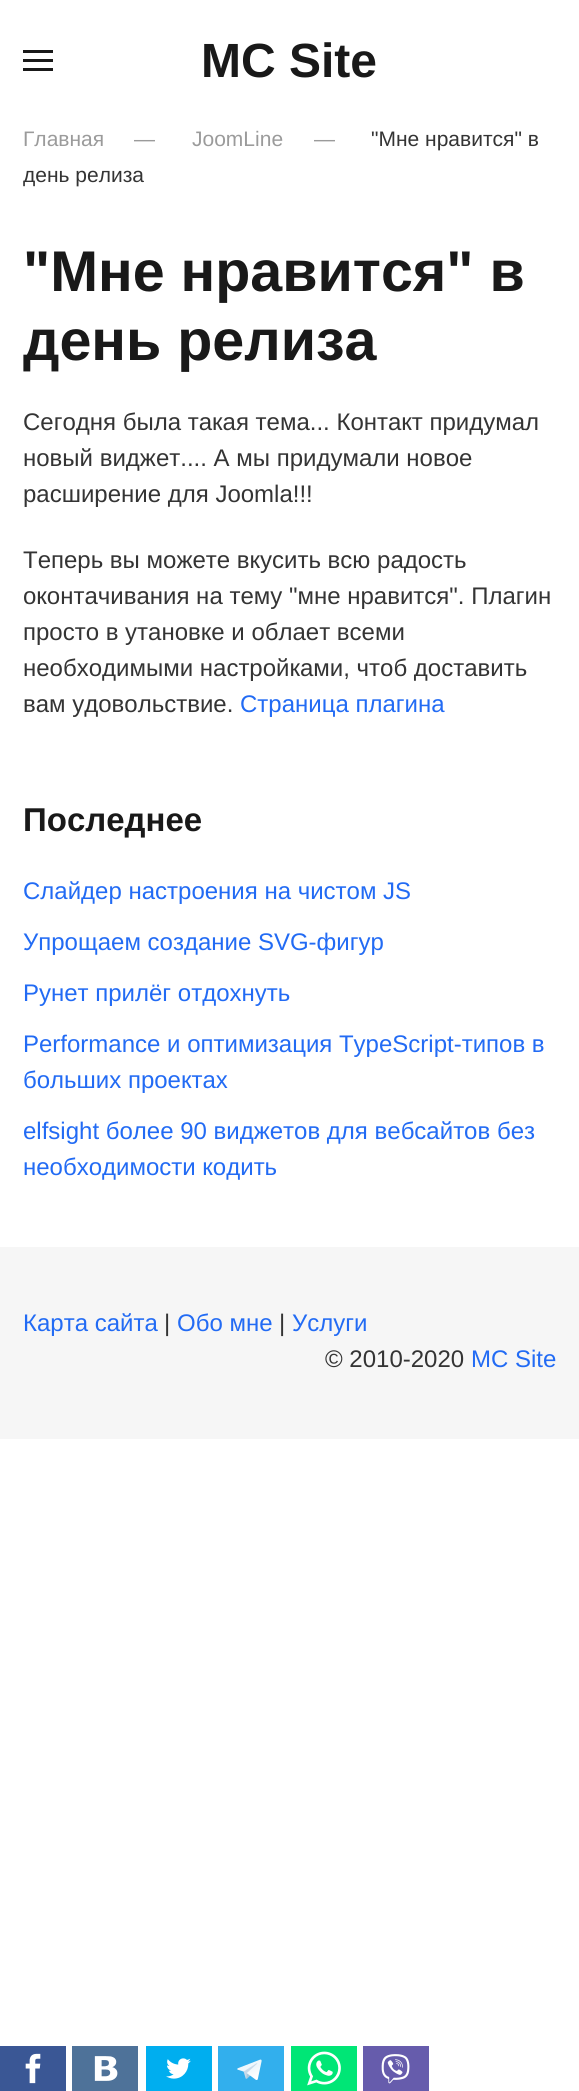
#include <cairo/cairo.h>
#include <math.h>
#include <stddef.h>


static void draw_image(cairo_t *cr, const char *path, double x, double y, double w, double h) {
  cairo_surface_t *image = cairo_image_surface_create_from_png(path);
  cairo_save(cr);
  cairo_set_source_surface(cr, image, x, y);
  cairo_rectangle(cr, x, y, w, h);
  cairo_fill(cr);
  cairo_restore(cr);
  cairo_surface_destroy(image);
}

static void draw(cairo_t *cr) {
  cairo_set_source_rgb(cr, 1, 1, 1);
  cairo_paint(cr);
  cairo_set_source_rgb(cr, 25 / 255.0, 25 / 255.0, 25 / 255.0);
  cairo_rectangle(cr, 23, 50, 30, 3);
  cairo_fill(cr);
  cairo_rectangle(cr, 23, 59, 30, 3);
  cairo_fill(cr);
  cairo_rectangle(cr, 23, 68, 30, 3);
  cairo_fill(cr);
  cairo_set_source_rgb(cr, 58 / 255.0, 87 / 255.0, 149 / 255.0);
  cairo_rectangle(cr, 0, 2046, 66, 45);
  cairo_fill(cr);
  draw_image(cr, "images/1.png", 25, 2053, 16, 31);
  cairo_set_source_rgb(cr, 78 / 255.0, 114 / 255.0, 153 / 255.0);
  cairo_rectangle(cr, 72, 2046, 66, 45);
  cairo_fill(cr);
  draw_image(cr, "images/2.png", 94, 2056, 24, 25);
  cairo_set_source_rgb(cr, 0, 174 / 255.0, 239 / 255.0);
  cairo_rectangle(cr, 146, 2046, 66, 45);
  cairo_fill(cr);
  draw_image(cr, "images/3.png", 166, 2058, 25, 21);
  cairo_set_source_rgb(cr, 50 / 255.0, 175 / 255.0, 237 / 255.0);
  cairo_rectangle(cr, 218, 2046, 66, 45);
  cairo_fill(cr);
  draw_image(cr, "images/4.png", 237, 2059, 25, 21);
  cairo_set_source_rgb(cr, 0, 230 / 255.0, 118 / 255.0);
  cairo_rectangle(cr, 291, 2046, 66, 45);
  cairo_fill(cr);
  draw_image(cr, "images/5.png", 307, 2051, 34, 35);
  cairo_set_source_rgb(cr, 102 / 255.0, 92 / 255.0, 172 / 255.0);
  cairo_rectangle(cr, 363, 2046, 66, 45);
  cairo_fill(cr);
  draw_image(cr, "images/6.png", 381, 2054, 29, 30);
  cairo_set_source_rgb(cr, 246 / 255.0, 246 / 255.0, 246 / 255.0);
  cairo_rectangle(cr, 0, 1247, 579, 192);
  cairo_fill(cr);
  cairo_select_font_face(cr, "Liberation Sans", CAIRO_FONT_SLANT_NORMAL, CAIRO_FONT_WEIGHT_BOLD);
  cairo_set_font_size(cr, 48);
  cairo_set_source_rgb(cr, 25 / 255.0, 25 / 255.0, 25 / 255.0);
  cairo_move_to(cr, 201, 77);
  cairo_show_text(cr, "MC Site");
  cairo_select_font_face(cr, "Liberation Sans", CAIRO_FONT_SLANT_NORMAL, CAIRO_FONT_WEIGHT_NORMAL);
  cairo_set_font_size(cr, 21);
  cairo_set_source_rgb(cr, 155 / 255.0, 155 / 255.0, 155 / 255.0);
  cairo_move_to(cr, 134, 146);
  cairo_show_text(cr, "—");
  cairo_move_to(cr, 192, 146);
  cairo_show_text(cr, "JoomLine");
  cairo_move_to(cr, 314, 146);
  cairo_show_text(cr, "—");
  cairo_set_source_rgb(cr, 52 / 255.0, 52 / 255.0, 52 / 255.0);
  cairo_move_to(cr, 371, 146);
  cairo_show_text(cr, "\"Мне нравится\" в");
  cairo_move_to(cr, 23, 182);
  cairo_show_text(cr, "день релиза");
  cairo_set_source_rgb(cr, 155 / 255.0, 155 / 255.0, 155 / 255.0);
  cairo_move_to(cr, 23, 146);
  cairo_show_text(cr, "Главная");
  cairo_select_font_face(cr, "Liberation Sans", CAIRO_FONT_SLANT_NORMAL, CAIRO_FONT_WEIGHT_BOLD);
  cairo_set_font_size(cr, 57.4);
  cairo_set_source_rgb(cr, 25 / 255.0, 25 / 255.0, 25 / 255.0);
  cairo_move_to(cr, 23, 291);
  cairo_show_text(cr, "\"Мне нравится\" в");
  cairo_move_to(cr, 23, 360);
  cairo_show_text(cr, "день релиза");
  cairo_select_font_face(cr, "Liberation Sans", CAIRO_FONT_SLANT_NORMAL, CAIRO_FONT_WEIGHT_NORMAL);
  cairo_set_font_size(cr, 24);
  cairo_set_source_rgb(cr, 52 / 255.0, 52 / 255.0, 52 / 255.0);
  cairo_move_to(cr, 23, 430);
  cairo_show_text(cr, "Сегодня была такая тема... Контакт придумал");
  cairo_move_to(cr, 23, 466);
  cairo_show_text(cr, "новый виджет.... А мы придумали новое");
  cairo_move_to(cr, 23, 502);
  cairo_show_text(cr, "расширение для Joomla!!!");
  cairo_move_to(cr, 23, 568);
  cairo_show_text(cr, "Теперь вы можете вкусить всю радость");
  cairo_move_to(cr, 23, 604);
  cairo_show_text(cr, "оконтачивания на тему \"мне нравится\". Плагин");
  cairo_move_to(cr, 23, 640);
  cairo_show_text(cr, "просто в утановке и облает всеми");
  cairo_move_to(cr, 23, 676);
  cairo_show_text(cr, "необходимыми настройками, чтоб доставить");
  cairo_move_to(cr, 23, 712);
  cairo_show_text(cr, "вам удовольствие.");
  cairo_set_source_rgb(cr, 34 / 255.0, 107 / 255.0, 244 / 255.0);
  cairo_move_to(cr, 240, 712);
  cairo_show_text(cr, "Страница плагина");
  cairo_select_font_face(cr, "Liberation Sans", CAIRO_FONT_SLANT_NORMAL, CAIRO_FONT_WEIGHT_BOLD);
  cairo_set_font_size(cr, 33);
  cairo_set_source_rgb(cr, 25 / 255.0, 25 / 255.0, 25 / 255.0);
  cairo_move_to(cr, 23, 831);
  cairo_show_text(cr, "Последнее");
  cairo_select_font_face(cr, "Liberation Sans", CAIRO_FONT_SLANT_NORMAL, CAIRO_FONT_WEIGHT_NORMAL);
  cairo_set_font_size(cr, 24);
  cairo_set_source_rgb(cr, 34 / 255.0, 107 / 255.0, 244 / 255.0);
  cairo_move_to(cr, 23, 899);
  cairo_show_text(cr, "Слайдер настроения на чистом JS");
  cairo_move_to(cr, 23, 950);
  cairo_show_text(cr, "Упрощаем создание SVG-фигур");
  cairo_move_to(cr, 23, 1001);
  cairo_show_text(cr, "Рунет прилёг отдохнуть");
  cairo_move_to(cr, 23, 1052);
  cairo_show_text(cr, "Performance и оптимизация TypeScript-типов в");
  cairo_move_to(cr, 23, 1088);
  cairo_show_text(cr, "больших проектах");
  cairo_move_to(cr, 23, 1139);
  cairo_show_text(cr, "elfsight более 90 виджетов для вебсайтов без");
  cairo_move_to(cr, 23, 1175);
  cairo_show_text(cr, "необходимости кодить");
  cairo_move_to(cr, 23, 1331);
  cairo_show_text(cr, "Карта сайта");
  cairo_set_source_rgb(cr, 52 / 255.0, 52 / 255.0, 52 / 255.0);
  cairo_move_to(cr, 164, 1331);
  cairo_show_text(cr, "|");
  cairo_set_source_rgb(cr, 34 / 255.0, 107 / 255.0, 244 / 255.0);
  cairo_move_to(cr, 177, 1331);
  cairo_show_text(cr, "Обо мне");
  cairo_set_source_rgb(cr, 52 / 255.0, 52 / 255.0, 52 / 255.0);
  cairo_move_to(cr, 279, 1331);
  cairo_show_text(cr, "|");
  cairo_set_source_rgb(cr, 34 / 255.0, 107 / 255.0, 244 / 255.0);
  cairo_move_to(cr, 292, 1331);
  cairo_show_text(cr, "Услуги");
  cairo_set_source_rgb(cr, 52 / 255.0, 52 / 255.0, 52 / 255.0);
  cairo_move_to(cr, 325, 1367);
  cairo_show_text(cr, "© 2010-2020");
  cairo_set_source_rgb(cr, 34 / 255.0, 107 / 255.0, 244 / 255.0);
  cairo_move_to(cr, 471, 1367);
  cairo_show_text(cr, "MC Site");
}

int main(void) {
  cairo_surface_t *surface = cairo_image_surface_create(CAIRO_FORMAT_RGB24, 579, 2091);
  cairo_t *cr = cairo_create(surface);
  cairo_font_options_t *options = cairo_font_options_create();
  cairo_font_options_set_hint_metrics(options, CAIRO_HINT_METRICS_OFF);
  cairo_font_options_set_hint_style(options, CAIRO_HINT_STYLE_NONE);
  cairo_set_font_options(cr, options);
  cairo_set_miter_limit(cr, 4);
  draw(cr);
  cairo_surface_write_to_png(surface, "out.png");
  cairo_font_options_destroy(options);
  cairo_destroy(cr);
  cairo_surface_destroy(surface);
  return 0;
}
